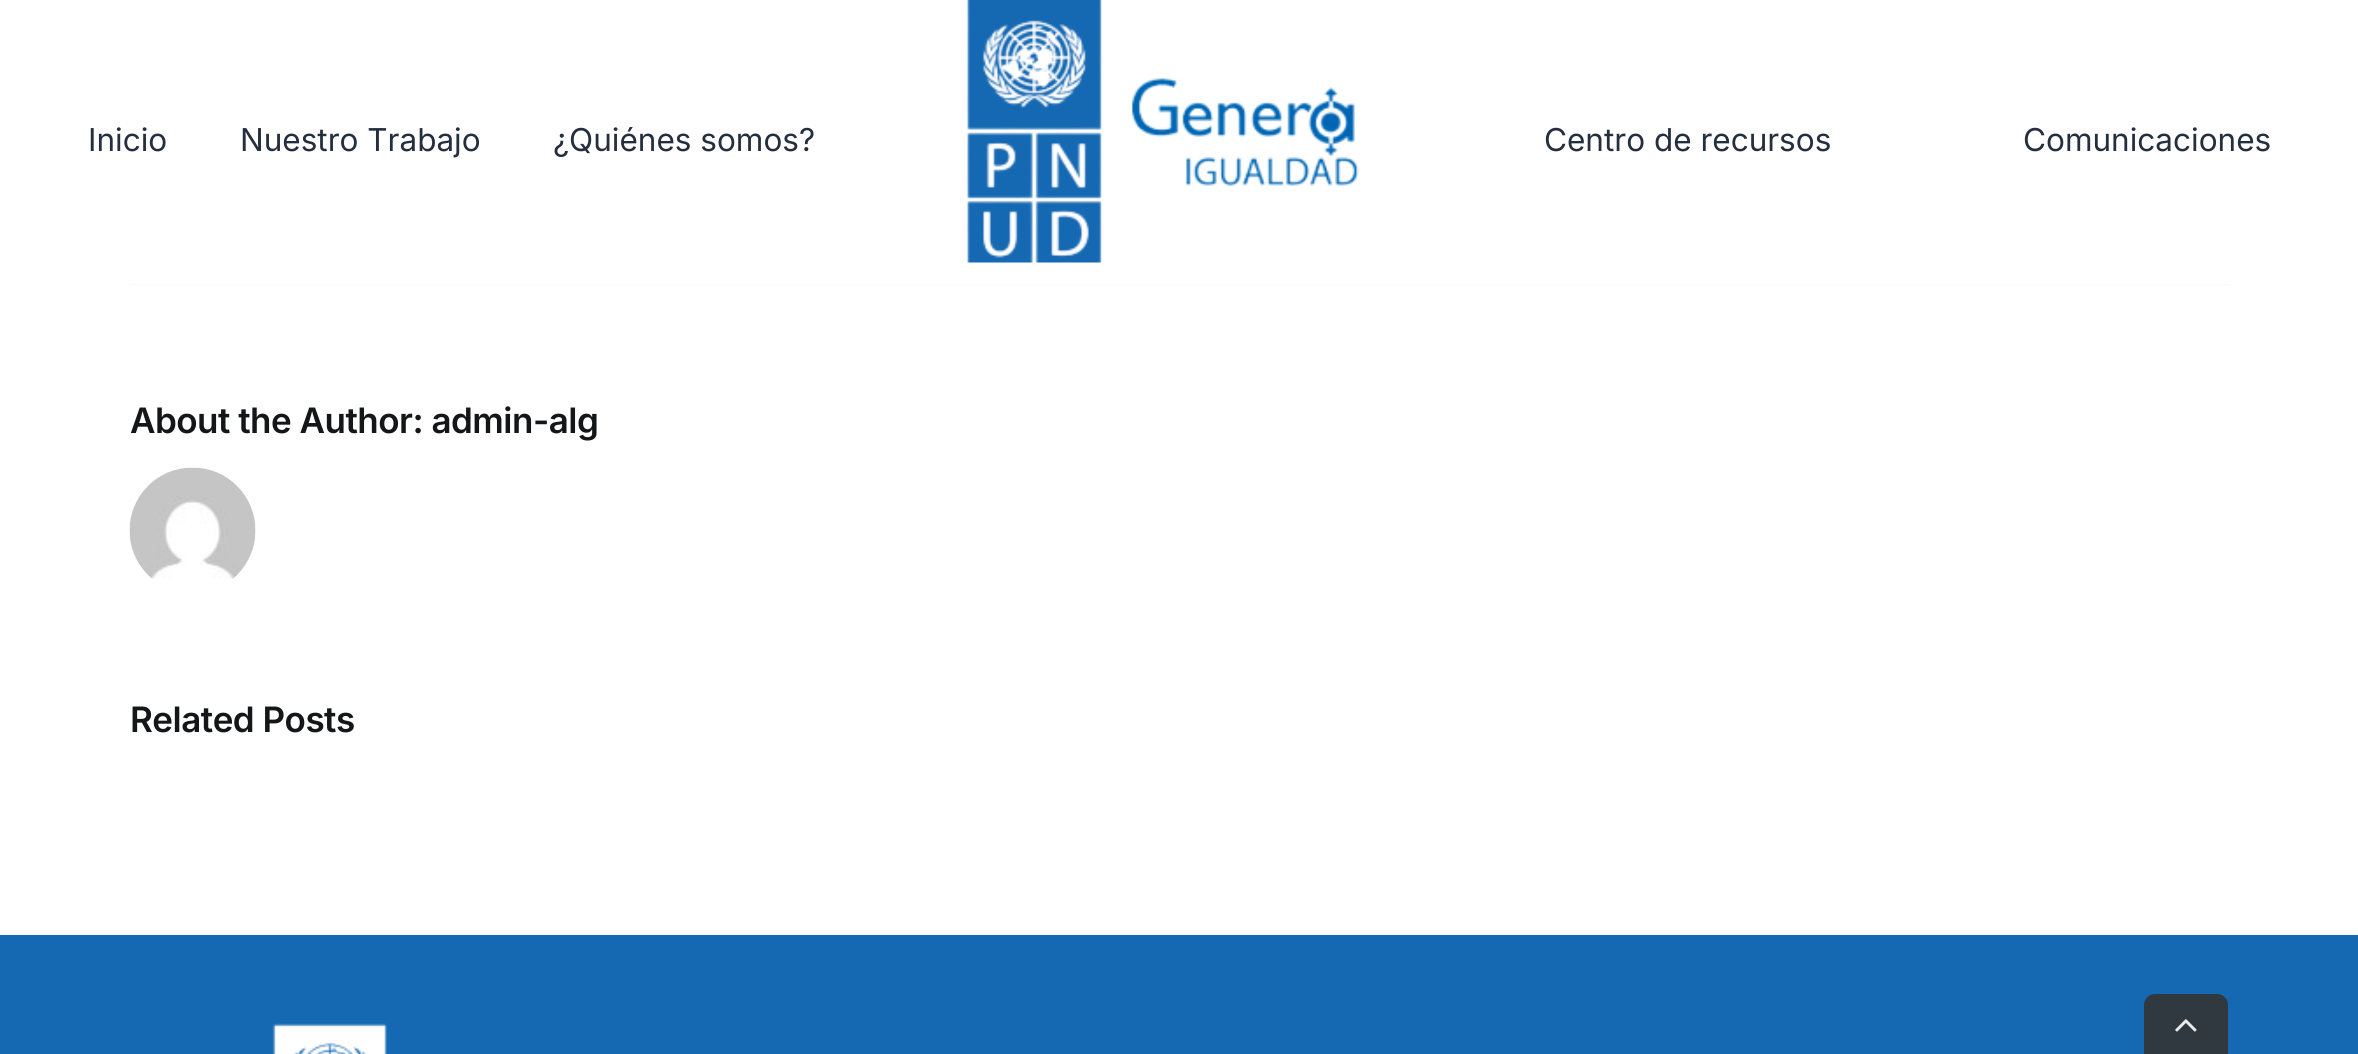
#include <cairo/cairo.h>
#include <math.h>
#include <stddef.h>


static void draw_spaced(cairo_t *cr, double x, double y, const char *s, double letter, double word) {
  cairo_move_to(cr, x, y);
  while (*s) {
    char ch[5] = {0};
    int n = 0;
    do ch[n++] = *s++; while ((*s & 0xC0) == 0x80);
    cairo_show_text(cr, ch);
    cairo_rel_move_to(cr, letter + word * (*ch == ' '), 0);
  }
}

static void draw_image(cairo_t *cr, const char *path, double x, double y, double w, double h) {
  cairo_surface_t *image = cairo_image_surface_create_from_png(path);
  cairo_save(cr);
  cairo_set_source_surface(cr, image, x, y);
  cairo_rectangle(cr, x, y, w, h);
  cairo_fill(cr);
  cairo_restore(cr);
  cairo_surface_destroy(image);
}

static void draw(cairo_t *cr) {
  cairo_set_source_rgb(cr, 1, 1, 1);
  cairo_paint(cr);
  draw_image(cr, "images/1.png", 967, 0, 392, 263);
  cairo_set_source_rgb(cr, 249 / 255.0, 249 / 255.0, 251 / 255.0);
  cairo_rectangle(cr, 130, 284, 2100, 1);
  cairo_fill(cr);
  draw_image(cr, "images/2.png", 129, 467, 127, 112);
  cairo_set_source_rgb(cr, 21 / 255.0, 104 / 255.0, 178 / 255.0);
  cairo_rectangle(cr, 0, 935, 2358, 119);
  cairo_fill(cr);
  draw_image(cr, "images/3.png", 272, 1023, 115, 31);
  cairo_set_source_rgb(cr, 48 / 255.0, 56 / 255.0, 64 / 255.0);
  cairo_new_path(cr);
  cairo_move_to(cr, 2155, 994);
  cairo_line_to(cr, 2217, 994);
  cairo_curve_to(cr, 2223, 994, 2228, 999, 2228, 1005);
  cairo_line_to(cr, 2228, 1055);
  cairo_line_to(cr, 2144, 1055);
  cairo_line_to(cr, 2144, 1005);
  cairo_curve_to(cr, 2144, 999, 2149, 994, 2155, 994);
  cairo_close_path(cr);
  cairo_fill(cr);
  draw_image(cr, "images/4.png", 2175, 1019, 22, 13);
  cairo_select_font_face(cr, "Inter", CAIRO_FONT_SLANT_NORMAL, CAIRO_FONT_WEIGHT_NORMAL);
  cairo_set_font_size(cr, 31.5);
  cairo_set_source_rgb(cr, 35 / 255.0, 46 / 255.0, 62 / 255.0);
  cairo_move_to(cr, 88, 151);
  cairo_show_text(cr, "Inicio");
  cairo_move_to(cr, 240, 151);
  cairo_show_text(cr, "Nuestro Trabajo");
  cairo_move_to(cr, 553, 151);
  cairo_show_text(cr, "¿Quiénes somos?");
  cairo_move_to(cr, 1544, 151);
  cairo_show_text(cr, "Centro de recursos");
  cairo_move_to(cr, 2023, 151);
  cairo_show_text(cr, "Comunicaciones");
  cairo_select_font_face(cr, "Inter SemiBold", CAIRO_FONT_SLANT_NORMAL, CAIRO_FONT_WEIGHT_NORMAL);
  cairo_set_font_size(cr, 35);
  cairo_set_source_rgb(cr, 20 / 255.0, 22 / 255.0, 23 / 255.0);
  draw_spaced(cr, 130, 433, "About the Author: admin-alg", -0.5, 0);
  draw_spaced(cr, 130, 732, "Related Posts", -0.5, 0);
}

int main(void) {
  cairo_surface_t *surface = cairo_image_surface_create(CAIRO_FORMAT_RGB24, 2358, 1054);
  cairo_t *cr = cairo_create(surface);
  cairo_font_options_t *options = cairo_font_options_create();
  cairo_font_options_set_hint_metrics(options, CAIRO_HINT_METRICS_OFF);
  cairo_font_options_set_hint_style(options, CAIRO_HINT_STYLE_NONE);
  cairo_set_font_options(cr, options);
  cairo_set_miter_limit(cr, 4);
  draw(cr);
  cairo_surface_write_to_png(surface, "out.png");
  cairo_font_options_destroy(options);
  cairo_destroy(cr);
  cairo_surface_destroy(surface);
  return 0;
}
